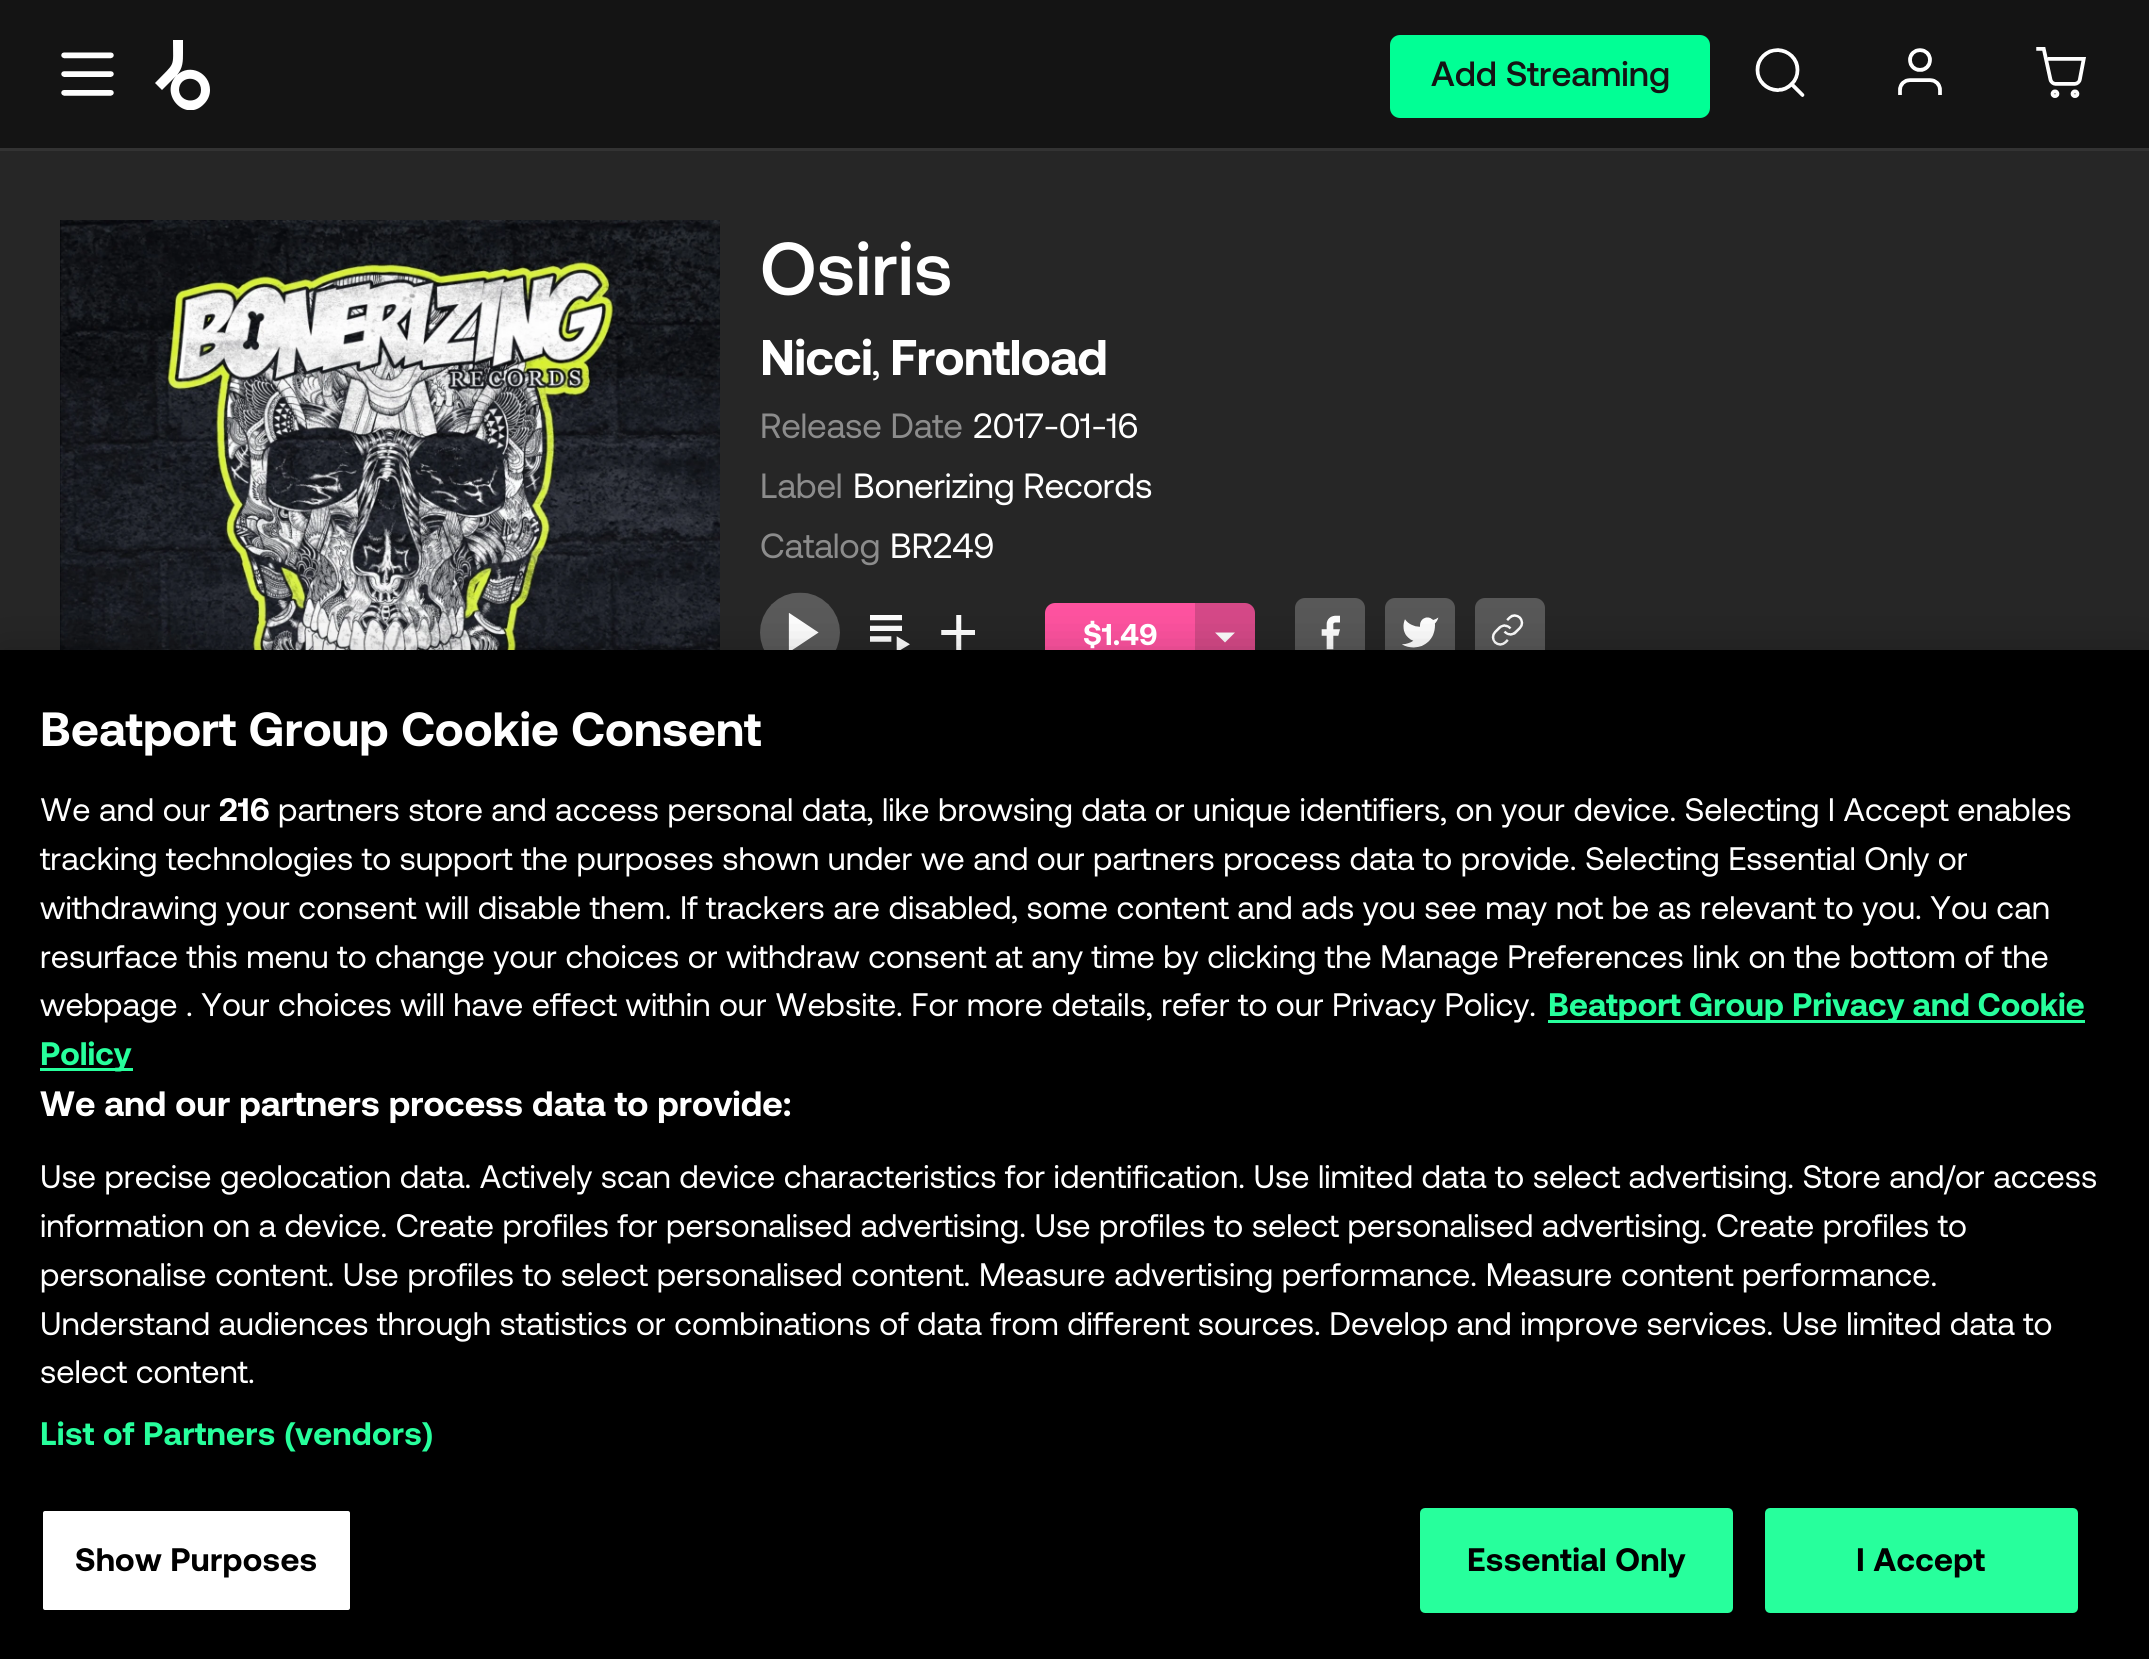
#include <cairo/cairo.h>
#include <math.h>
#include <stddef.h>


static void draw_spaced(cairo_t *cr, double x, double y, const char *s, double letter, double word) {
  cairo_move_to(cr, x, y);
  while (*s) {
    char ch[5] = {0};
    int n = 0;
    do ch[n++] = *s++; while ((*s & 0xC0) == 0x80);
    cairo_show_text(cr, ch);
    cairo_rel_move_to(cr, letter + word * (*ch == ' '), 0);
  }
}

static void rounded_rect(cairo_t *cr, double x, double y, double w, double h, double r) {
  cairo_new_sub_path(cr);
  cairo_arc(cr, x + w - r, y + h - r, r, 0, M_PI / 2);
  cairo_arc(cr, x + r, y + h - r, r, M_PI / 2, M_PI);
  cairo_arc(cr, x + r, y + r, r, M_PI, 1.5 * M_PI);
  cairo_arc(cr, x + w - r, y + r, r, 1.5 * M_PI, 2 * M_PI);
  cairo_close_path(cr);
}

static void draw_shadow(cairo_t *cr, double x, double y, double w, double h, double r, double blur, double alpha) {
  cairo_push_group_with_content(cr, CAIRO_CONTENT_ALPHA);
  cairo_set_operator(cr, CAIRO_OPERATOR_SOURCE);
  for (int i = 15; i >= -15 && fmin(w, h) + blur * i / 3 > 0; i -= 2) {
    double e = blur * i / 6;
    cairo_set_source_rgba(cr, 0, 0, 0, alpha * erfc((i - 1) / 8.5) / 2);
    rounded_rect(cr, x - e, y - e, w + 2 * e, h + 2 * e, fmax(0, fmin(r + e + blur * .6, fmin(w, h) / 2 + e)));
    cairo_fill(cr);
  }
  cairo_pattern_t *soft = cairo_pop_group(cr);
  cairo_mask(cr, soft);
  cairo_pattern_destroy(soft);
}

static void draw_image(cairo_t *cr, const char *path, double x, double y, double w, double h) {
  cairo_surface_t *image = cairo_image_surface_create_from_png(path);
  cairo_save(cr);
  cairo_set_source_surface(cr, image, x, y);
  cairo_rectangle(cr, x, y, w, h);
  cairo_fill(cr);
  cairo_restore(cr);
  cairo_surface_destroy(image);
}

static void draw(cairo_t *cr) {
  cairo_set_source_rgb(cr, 38 / 255.0, 38 / 255.0, 38 / 255.0);
  cairo_paint(cr);
  cairo_set_source_rgb(cr, 20 / 255.0, 20 / 255.0, 20 / 255.0);
  cairo_rectangle(cr, 0, 0, 2149, 148);
  cairo_fill(cr);
  cairo_set_source_rgb(cr, 51 / 255.0, 51 / 255.0, 51 / 255.0);
  cairo_rectangle(cr, 0, 148, 2149, 3);
  cairo_fill(cr);
  draw_image(cr, "images/1.png", 61, 52, 53, 44);
  cairo_save(cr);
  cairo_rectangle(cr, 155, 40, 55, 70);
  cairo_clip(cr);
  cairo_set_source_rgb(cr, 1, 1, 1);
  cairo_new_path(cr);
  cairo_move_to(cr, 210, 90);
  cairo_curve_to(cr, 210, 95, 208, 100, 204, 104);
  cairo_curve_to(cr, 186, 123, 159, 95, 176, 76);
  cairo_line_to(cr, 162, 90);
  cairo_line_to(cr, 155, 83);
  cairo_curve_to(cr, 176, 61, 173, 69, 173, 40);
  cairo_line_to(cr, 183, 40);
  cairo_line_to(cr, 183, 53);
  cairo_curve_to(cr, 183, 61, 183, 68, 177, 75);
  cairo_curve_to(cr, 190, 63, 210, 73, 210, 90);
  cairo_close_path(cr);
  cairo_move_to(cr, 201, 90);
  cairo_curve_to(cr, 201, 75, 179, 75, 179, 90);
  cairo_curve_to(cr, 180, 104, 201, 104, 201, 90);
  cairo_close_path(cr);
  cairo_fill(cr);
  cairo_restore(cr);
  cairo_set_source_rgb(cr, 1 / 255.0, 1, 149 / 255.0);
  rounded_rect(cr, 1390, 35, 320, 83, 10);
  cairo_fill(cr);
  draw_image(cr, "images/2.png", 1755, 48, 50, 49);
  draw_image(cr, "images/3.png", 1898, 48, 44, 47);
  draw_image(cr, "images/4.png", 2036, 47, 50, 51);
  draw_image(cr, "images/5.png", 60, 220, 660, 430);
  draw_image(cr, "images/6.png", 760, 592, 80, 58);
  draw_image(cr, "images/7.png", 870, 615, 40, 35);
  draw_image(cr, "images/8.png", 941, 615, 34, 35);
  cairo_set_source_rgb(cr, 1, 83 / 255.0, 160 / 255.0);
  cairo_new_path(cr);
  cairo_move_to(cr, 1055, 603);
  cairo_line_to(cr, 1195, 603);
  cairo_line_to(cr, 1195, 663);
  cairo_line_to(cr, 1055, 663);
  cairo_curve_to(cr, 1049.5, 663, 1045, 658.5, 1045, 653);
  cairo_line_to(cr, 1045, 613);
  cairo_curve_to(cr, 1045, 607.5, 1049.5, 603, 1055, 603);
  cairo_close_path(cr);
  cairo_fill(cr);
  cairo_set_source_rgb(cr, 214 / 255.0, 73 / 255.0, 136 / 255.0);
  cairo_new_path(cr);
  cairo_move_to(cr, 1195, 603);
  cairo_line_to(cr, 1245, 603);
  cairo_curve_to(cr, 1250.5, 603, 1255, 607.5, 1255, 613);
  cairo_line_to(cr, 1255, 653);
  cairo_curve_to(cr, 1255, 658.5, 1250.5, 663, 1245, 663);
  cairo_line_to(cr, 1195, 663);
  cairo_close_path(cr);
  cairo_fill(cr);
  cairo_set_source_rgb(cr, 1, 1, 1);
  cairo_new_path(cr);
  cairo_move_to(cr, 1215, 632.5);
  cairo_line_to(cr, 1235, 632.5);
  cairo_line_to(cr, 1225, 642.5);
  cairo_close_path(cr);
  cairo_fill(cr);
  cairo_set_source_rgb(cr, 88 / 255.0, 88 / 255.0, 88 / 255.0);
  rounded_rect(cr, 1295, 598, 70, 70, 10);
  cairo_fill(cr);
  draw_image(cr, "images/9.png", 1321, 615, 19, 35);
  rounded_rect(cr, 1385, 598, 70, 70, 10);
  cairo_fill(cr);
  draw_image(cr, "images/10.png", 1402, 617, 37, 31);
  rounded_rect(cr, 1475, 598, 70, 70, 10);
  cairo_fill(cr);
  draw_image(cr, "images/11.png", 1491, 614, 33, 32);
  cairo_set_source_rgb(cr, 0, 0, 0);
  draw_shadow(cr, 0, 650, 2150, 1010, 0, 22.5, 0.2);
  cairo_set_source_rgb(cr, 0, 0, 0);
  cairo_rectangle(cr, 0, 650, 2149, 1009);
  cairo_fill(cr);
  cairo_set_source_rgb(cr, 39 / 255.0, 1, 156 / 255.0);
  cairo_rectangle(cr, 1548, 1020, 537, 3);
  cairo_fill(cr);
  cairo_rectangle(cr, 40, 1068, 93, 3);
  cairo_fill(cr);
  cairo_set_source_rgb(cr, 1, 1, 1);
  rounded_rect(cr, 41.5, 1509.5, 310, 102, 3.5);
  cairo_fill_preserve(cr);
  cairo_set_source_rgb(cr, 0, 0, 0);
  cairo_set_line_width(cr, 3);
  cairo_stroke(cr);
  cairo_set_source_rgb(cr, 39 / 255.0, 1, 156 / 255.0);
  rounded_rect(cr, 1421.5, 1509.5, 310, 102, 3.5);
  cairo_fill_preserve(cr);
  cairo_stroke(cr);
  rounded_rect(cr, 1766.5, 1509.5, 310, 102, 3.5);
  cairo_fill_preserve(cr);
  cairo_stroke(cr);
  cairo_select_font_face(cr, "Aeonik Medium", CAIRO_FONT_SLANT_NORMAL, CAIRO_FONT_WEIGHT_NORMAL);
  cairo_set_font_size(cr, 35);
  cairo_set_source_rgb(cr, 20 / 255.0, 20 / 255.0, 20 / 255.0);
  cairo_move_to(cr, 1431, 86);
  cairo_show_text(cr, "Add Streaming");
  cairo_set_font_size(cr, 75);
  cairo_set_source_rgb(cr, 1, 1, 1);
  cairo_move_to(cr, 760, 295);
  cairo_show_text(cr, "Osiris");
  cairo_select_font_face(cr, "Aeonik", CAIRO_FONT_SLANT_NORMAL, CAIRO_FONT_WEIGHT_BOLD);
  cairo_set_font_size(cr, 50);
  draw_spaced(cr, 760, 375, "Nicci", -0.75, 0);
  cairo_select_font_face(cr, "Aeonik", CAIRO_FONT_SLANT_NORMAL, CAIRO_FONT_WEIGHT_NORMAL);
  cairo_set_font_size(cr, 40);
  cairo_move_to(cr, 872, 375);
  cairo_show_text(cr, ",");
  cairo_select_font_face(cr, "Aeonik", CAIRO_FONT_SLANT_NORMAL, CAIRO_FONT_WEIGHT_BOLD);
  cairo_set_font_size(cr, 50);
  draw_spaced(cr, 890, 375, "Frontload", -0.75, 0);
  cairo_select_font_face(cr, "Aeonik", CAIRO_FONT_SLANT_NORMAL, CAIRO_FONT_WEIGHT_NORMAL);
  cairo_set_font_size(cr, 35);
  cairo_set_source_rgb(cr, 140 / 255.0, 140 / 255.0, 140 / 255.0);
  draw_spaced(cr, 760, 438, "Release Date", -0.25, 0);
  cairo_set_source_rgb(cr, 1, 1, 1);
  draw_spaced(cr, 973, 438, "2017-01-16", -0.25, 0);
  cairo_set_source_rgb(cr, 140 / 255.0, 140 / 255.0, 140 / 255.0);
  draw_spaced(cr, 760, 498, "Label", -0.25, 0);
  cairo_set_source_rgb(cr, 1, 1, 1);
  draw_spaced(cr, 853, 498, "Bonerizing Records", -0.25, 0);
  cairo_set_source_rgb(cr, 140 / 255.0, 140 / 255.0, 140 / 255.0);
  draw_spaced(cr, 760, 558, "Catalog", -0.25, 0);
  cairo_set_source_rgb(cr, 1, 1, 1);
  draw_spaced(cr, 890, 558, "BR249", -0.25, 0);
  cairo_select_font_face(cr, "Aeonik", CAIRO_FONT_SLANT_NORMAL, CAIRO_FONT_WEIGHT_BOLD);
  cairo_set_font_size(cr, 30);
  cairo_move_to(cr, 1083, 645);
  cairo_show_text(cr, "$1.49");
  cairo_set_font_size(cr, 48);
  draw_spaced(cr, 40, 746, "Beatport Group Cookie Consent", 0, 0.5);
  cairo_select_font_face(cr, "Aeonik", CAIRO_FONT_SLANT_NORMAL, CAIRO_FONT_WEIGHT_NORMAL);
  cairo_set_font_size(cr, 32.52);
  cairo_move_to(cr, 40, 821);
  cairo_show_text(cr, "We and our");
  cairo_select_font_face(cr, "Aeonik", CAIRO_FONT_SLANT_NORMAL, CAIRO_FONT_WEIGHT_BOLD);
  cairo_move_to(cr, 219, 821);
  cairo_show_text(cr, "216");
  cairo_select_font_face(cr, "Aeonik", CAIRO_FONT_SLANT_NORMAL, CAIRO_FONT_WEIGHT_NORMAL);
  cairo_move_to(cr, 278, 821);
  cairo_show_text(cr, "partners store and access personal data, like browsing data or unique identifiers, on your device. Selecting I Accept enables");
  cairo_move_to(cr, 40, 870);
  cairo_show_text(cr, "tracking technologies to support the purposes shown under we and our partners process data to provide. Selecting Essential Only or");
  cairo_move_to(cr, 40, 919);
  cairo_show_text(cr, "withdrawing your consent will disable them. If trackers are disabled, some content and ads you see may not be as relevant to you. You can");
  cairo_move_to(cr, 40, 968);
  cairo_show_text(cr, "resurface this menu to change your choices or withdraw consent at any time by clicking the Manage Preferences link on the bottom of the");
  cairo_move_to(cr, 40, 1016);
  cairo_show_text(cr, "webpage . Your choices will have effect within our Website. For more details, refer to our Privacy Policy.");
  cairo_select_font_face(cr, "Aeonik", CAIRO_FONT_SLANT_NORMAL, CAIRO_FONT_WEIGHT_BOLD);
  cairo_set_source_rgb(cr, 39 / 255.0, 1, 156 / 255.0);
  cairo_move_to(cr, 1548, 1016);
  cairo_show_text(cr, "Beatport Group Privacy and Cookie");
  cairo_move_to(cr, 40, 1065);
  cairo_show_text(cr, "Policy");
  cairo_set_font_size(cr, 35.2);
  cairo_set_source_rgb(cr, 1, 1, 1);
  draw_spaced(cr, 40, 1116, "We and our partners process data to provide:", 0, 0.25);
  cairo_select_font_face(cr, "Aeonik", CAIRO_FONT_SLANT_NORMAL, CAIRO_FONT_WEIGHT_NORMAL);
  cairo_set_font_size(cr, 32.52);
  cairo_move_to(cr, 40, 1188);
  cairo_show_text(cr, "Use precise geolocation data. Actively scan device characteristics for identification. Use limited data to select advertising. Store and/or access");
  cairo_move_to(cr, 40, 1237);
  cairo_show_text(cr, "information on a device. Create profiles for personalised advertising. Use profiles to select personalised advertising. Create profiles to");
  draw_spaced(cr, 40, 1286, "personalise content. Use profiles to select personalised content. Measure advertising performance. Measure content performance.", 0, 0.2);
  cairo_move_to(cr, 40, 1335);
  cairo_show_text(cr, "Understand audiences through statistics or combinations of data from different sources. Develop and improve services. Use limited data to");
  cairo_move_to(cr, 40, 1383);
  cairo_show_text(cr, "select content.");
  cairo_select_font_face(cr, "Aeonik", CAIRO_FONT_SLANT_NORMAL, CAIRO_FONT_WEIGHT_BOLD);
  cairo_set_source_rgb(cr, 39 / 255.0, 1, 156 / 255.0);
  draw_spaced(cr, 40, 1445, "List of Partners (vendors)", 0.3, 0);
  cairo_set_source_rgb(cr, 0, 0, 0);
  draw_spaced(cr, 75, 1571, "Show Purposes", 0.3, 0);
  draw_spaced(cr, 1467, 1571, "Essential Only", 0.3, 0);
  draw_spaced(cr, 1856, 1571, "I Accept", 0.3, 0);
}

int main(void) {
  cairo_surface_t *surface = cairo_image_surface_create(CAIRO_FORMAT_RGB24, 2149, 1659);
  cairo_t *cr = cairo_create(surface);
  cairo_font_options_t *options = cairo_font_options_create();
  cairo_font_options_set_hint_metrics(options, CAIRO_HINT_METRICS_OFF);
  cairo_font_options_set_hint_style(options, CAIRO_HINT_STYLE_NONE);
  cairo_set_font_options(cr, options);
  cairo_set_miter_limit(cr, 4);
  draw(cr);
  cairo_surface_write_to_png(surface, "out.png");
  cairo_font_options_destroy(options);
  cairo_destroy(cr);
  cairo_surface_destroy(surface);
  return 0;
}
